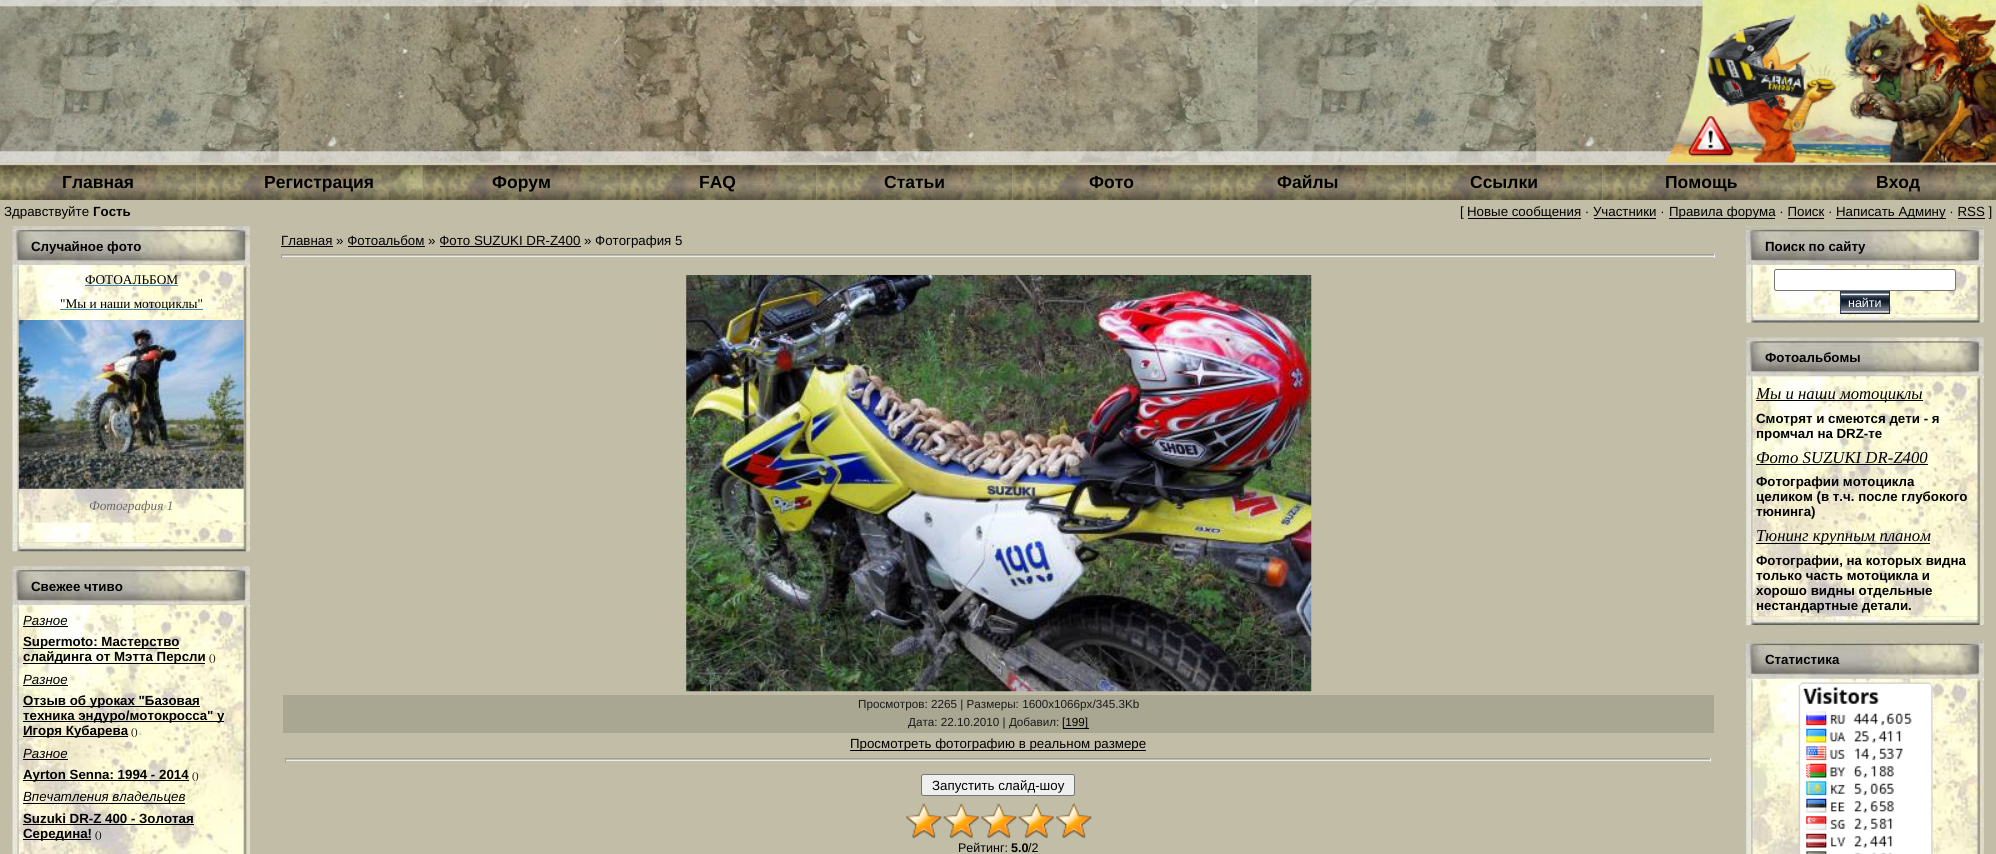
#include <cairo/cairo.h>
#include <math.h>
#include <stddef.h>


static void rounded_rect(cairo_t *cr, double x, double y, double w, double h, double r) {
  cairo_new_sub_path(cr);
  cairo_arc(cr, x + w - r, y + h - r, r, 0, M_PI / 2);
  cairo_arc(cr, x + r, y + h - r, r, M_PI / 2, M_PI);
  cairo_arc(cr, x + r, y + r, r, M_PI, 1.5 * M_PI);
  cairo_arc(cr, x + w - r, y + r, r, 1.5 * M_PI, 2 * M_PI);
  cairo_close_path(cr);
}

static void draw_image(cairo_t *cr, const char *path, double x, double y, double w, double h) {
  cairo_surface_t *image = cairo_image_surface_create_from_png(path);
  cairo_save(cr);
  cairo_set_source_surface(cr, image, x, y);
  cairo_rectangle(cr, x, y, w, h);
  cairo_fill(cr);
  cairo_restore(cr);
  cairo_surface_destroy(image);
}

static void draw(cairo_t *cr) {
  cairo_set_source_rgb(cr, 193 / 255.0, 189 / 255.0, 166 / 255.0);
  cairo_paint(cr);
  draw_image(cr, "images/1.png", 0, 0, 1996, 163);
  draw_image(cr, "images/9.png", 1210, 162, 197, 38);
  draw_image(cr, "images/10.png", 1406, 162, 197, 38);
  draw_image(cr, "images/11.png", 1602, 162, 198, 38);
  draw_image(cr, "images/12.png", 1800, 162, 196, 38);
  draw_image(cr, "images/2.png", 1665, 0, 331, 163);
  draw_image(cr, "images/3.png", 0, 162, 197, 38);
  draw_image(cr, "images/4.png", 196, 162, 227, 38);
  draw_image(cr, "images/5.png", 422, 162, 198, 38);
  draw_image(cr, "images/6.png", 620, 162, 197, 38);
  draw_image(cr, "images/7.png", 816, 162, 197, 38);
  draw_image(cr, "images/8.png", 1012, 162, 198, 38);
  cairo_set_source_rgb(cr, 0, 0, 0);
  cairo_rectangle(cr, 1468, 218, 113, 1);
  cairo_fill(cr);
  cairo_rectangle(cr, 1669, 218, 106, 1);
  cairo_fill(cr);
  cairo_rectangle(cr, 1836, 218, 110, 1);
  cairo_fill(cr);
  cairo_rectangle(cr, 1594, 218, 62, 1);
  cairo_fill(cr);
  cairo_rectangle(cr, 1788, 218, 36, 1);
  cairo_fill(cr);
  cairo_rectangle(cr, 1958, 218, 27, 1);
  cairo_fill(cr);
  draw_image(cr, "images/13.png", 12, 226, 238, 39);
  draw_image(cr, "images/14.png", 12, 265, 238, 278);
  cairo_set_source_rgb(cr, 70 / 255.0, 130 / 255.0, 180 / 255.0);
  cairo_rectangle(cr, 85, 285, 93, 1);
  cairo_fill(cr);
  cairo_rectangle(cr, 60, 309, 143, 1);
  cairo_fill(cr);
  draw_image(cr, "images/15.png", 18, 320, 226, 169);
  draw_image(cr, "images/16.png", 12, 542, 238, 10);
  draw_image(cr, "images/17.png", 12, 566, 238, 39);
  draw_image(cr, "images/18.png", 12, 605, 238, 249);
  cairo_set_source_rgb(cr, 0, 0, 0);
  cairo_rectangle(cr, 23, 626, 45, 1);
  cairo_fill(cr);
  cairo_rectangle(cr, 23, 648, 156, 1);
  cairo_fill(cr);
  cairo_rectangle(cr, 23, 663, 182, 1);
  cairo_fill(cr);
  cairo_rectangle(cr, 23, 685, 45, 1);
  cairo_fill(cr);
  cairo_rectangle(cr, 23, 706, 177, 1);
  cairo_fill(cr);
  cairo_rectangle(cr, 23, 721, 201, 1);
  cairo_fill(cr);
  cairo_rectangle(cr, 23, 736, 105, 1);
  cairo_fill(cr);
  cairo_rectangle(cr, 23, 759, 45, 1);
  cairo_fill(cr);
  cairo_rectangle(cr, 23, 780, 166, 1);
  cairo_fill(cr);
  cairo_rectangle(cr, 23, 803, 162, 1);
  cairo_fill(cr);
  cairo_rectangle(cr, 23, 824, 171, 1);
  cairo_fill(cr);
  cairo_rectangle(cr, 23, 839, 68, 1);
  cairo_fill(cr);
  cairo_rectangle(cr, 281, 246, 52, 1);
  cairo_fill(cr);
  cairo_rectangle(cr, 348, 246, 77, 1);
  cairo_fill(cr);
  cairo_rectangle(cr, 440, 246, 141, 1);
  cairo_fill(cr);
  cairo_set_source_rgb(cr, 159 / 255.0, 159 / 255.0, 159 / 255.0);
  cairo_rectangle(cr, 281, 254, 1434, 1);
  cairo_fill(cr);
  cairo_set_source_rgb(cr, 238 / 255.0, 238 / 255.0, 238 / 255.0);
  cairo_rectangle(cr, 1714, 254, 1, 4);
  cairo_fill(cr);
  cairo_rectangle(cr, 281, 256, 1434, 1);
  cairo_fill(cr);
  cairo_set_source_rgb(cr, 159 / 255.0, 159 / 255.0, 159 / 255.0);
  cairo_rectangle(cr, 281, 254, 1, 4);
  cairo_fill(cr);
  draw_image(cr, "images/19.png", 686, 275, 626, 417);
  cairo_set_source_rgb(cr, 169 / 255.0, 166 / 255.0, 146 / 255.0);
  cairo_rectangle(cr, 283, 695, 1431, 38);
  cairo_fill(cr);
  cairo_set_source_rgb(cr, 0, 0, 0);
  cairo_rectangle(cr, 1063, 728, 26, 1);
  cairo_fill(cr);
  cairo_rectangle(cr, 850, 750, 296, 1);
  cairo_fill(cr);
  cairo_set_source_rgb(cr, 159 / 255.0, 159 / 255.0, 159 / 255.0);
  cairo_rectangle(cr, 285, 758, 1426, 1);
  cairo_fill(cr);
  cairo_set_source_rgb(cr, 238 / 255.0, 238 / 255.0, 238 / 255.0);
  cairo_rectangle(cr, 1710, 758, 1, 4);
  cairo_fill(cr);
  cairo_rectangle(cr, 285, 760, 1426, 1);
  cairo_fill(cr);
  cairo_set_source_rgb(cr, 159 / 255.0, 159 / 255.0, 159 / 255.0);
  cairo_rectangle(cr, 285, 758, 1, 4);
  cairo_fill(cr);
  cairo_set_source_rgb(cr, 239 / 255.0, 239 / 255.0, 239 / 255.0);
  rounded_rect(cr, 921.5, 774.5, 153, 21, 2);
  cairo_fill_preserve(cr);
  cairo_set_source_rgb(cr, 118 / 255.0, 118 / 255.0, 118 / 255.0);
  cairo_set_line_width(cr, 1);
  cairo_stroke(cr);
  draw_image(cr, "images/20.png", 906, 803, 186, 35);
  draw_image(cr, "images/21.png", 906, 803, 186, 36);
  cairo_set_source_rgb(cr, 216 / 255.0, 220 / 255.0, 225 / 255.0);
  cairo_rectangle(cr, 1746, 226, 238, 39);
  cairo_fill(cr);
  draw_image(cr, "images/22.png", 1746, 226, 238, 39);
  draw_image(cr, "images/23.png", 1746, 265, 238, 49);
  cairo_set_source_rgb(cr, 1, 1, 1);
  rounded_rect(cr, 1774.5, 269.5, 181, 21, 2);
  cairo_fill_preserve(cr);
  cairo_set_source_rgb(cr, 118 / 255.0, 118 / 255.0, 118 / 255.0);
  cairo_stroke(cr);
  draw_image(cr, "images/24.png", 1841, 292, 48, 21);
  cairo_set_source_rgb(cr, 44 / 255.0, 61 / 255.0, 82 / 255.0);
  cairo_rectangle(cr, 1840, 291, 50, 1);
  cairo_fill(cr);
  draw_image(cr, "images/25.png", 1746, 313, 238, 10);
  cairo_set_source_rgb(cr, 29 / 255.0, 41 / 255.0, 55 / 255.0);
  cairo_rectangle(cr, 1889, 291, 1, 23);
  cairo_fill(cr);
  cairo_rectangle(cr, 1840, 313, 50, 1);
  cairo_fill(cr);
  cairo_set_source_rgb(cr, 44 / 255.0, 61 / 255.0, 82 / 255.0);
  cairo_rectangle(cr, 1840, 291, 1, 23);
  cairo_fill(cr);
  draw_image(cr, "images/26.png", 1746, 337, 238, 40);
  draw_image(cr, "images/27.png", 1746, 376, 238, 241);
  cairo_set_source_rgb(cr, 0, 0, 0);
  cairo_rectangle(cr, 1756, 400, 167, 1);
  cairo_fill(cr);
  cairo_rectangle(cr, 1756, 464, 172, 1);
  cairo_fill(cr);
  cairo_rectangle(cr, 1756, 543, 174, 1);
  cairo_fill(cr);
  draw_image(cr, "images/28.png", 1746, 616, 238, 9);
  cairo_set_source_rgb(cr, 216 / 255.0, 220 / 255.0, 225 / 255.0);
  cairo_rectangle(cr, 1746, 640, 238, 39);
  cairo_fill(cr);
  draw_image(cr, "images/29.png", 1746, 640, 238, 39);
  draw_image(cr, "images/30.png", 1746, 678, 238, 176);
  draw_image(cr, "images/31.png", 1798, 682, 135, 172);
  cairo_select_font_face(cr, "Liberation Sans", CAIRO_FONT_SLANT_NORMAL, CAIRO_FONT_WEIGHT_BOLD);
  cairo_set_font_size(cr, 17.5);
  cairo_set_source_rgb(cr, 0, 0, 0);
  cairo_move_to(cr, 62, 188);
  cairo_show_text(cr, "Главная");
  cairo_move_to(cr, 264, 188);
  cairo_show_text(cr, "Регистрация");
  cairo_move_to(cr, 492, 188);
  cairo_show_text(cr, "Форум");
  cairo_move_to(cr, 699, 188);
  cairo_show_text(cr, "FAQ");
  cairo_move_to(cr, 884, 188);
  cairo_show_text(cr, "Статьи");
  cairo_move_to(cr, 1089, 188);
  cairo_show_text(cr, "Фото");
  cairo_move_to(cr, 1277, 188);
  cairo_show_text(cr, "Файлы");
  cairo_move_to(cr, 1470, 188);
  cairo_show_text(cr, "Ссылки");
  cairo_move_to(cr, 1665, 188);
  cairo_show_text(cr, "Помощь");
  cairo_move_to(cr, 1876, 188);
  cairo_show_text(cr, "Вход");
  cairo_select_font_face(cr, "Liberation Sans", CAIRO_FONT_SLANT_NORMAL, CAIRO_FONT_WEIGHT_NORMAL);
  cairo_set_font_size(cr, 13.3);
  cairo_move_to(cr, 4, 216);
  cairo_show_text(cr, "Здравствуйте");
  cairo_select_font_face(cr, "Liberation Sans", CAIRO_FONT_SLANT_NORMAL, CAIRO_FONT_WEIGHT_BOLD);
  cairo_move_to(cr, 93, 216);
  cairo_show_text(cr, "Гость");
  cairo_select_font_face(cr, "Liberation Sans", CAIRO_FONT_SLANT_NORMAL, CAIRO_FONT_WEIGHT_NORMAL);
  cairo_move_to(cr, 1460, 216);
  cairo_show_text(cr, "[");
  cairo_move_to(cr, 1467, 216);
  cairo_show_text(cr, "Новые сообщения · Участники ·");
  cairo_move_to(cr, 1669, 216);
  cairo_show_text(cr, "Правила форума · Поиск ·");
  cairo_move_to(cr, 1836, 216);
  cairo_show_text(cr, "Написать Админу · RSS ]");
  cairo_select_font_face(cr, "Liberation Sans", CAIRO_FONT_SLANT_NORMAL, CAIRO_FONT_WEIGHT_BOLD);
  cairo_move_to(cr, 31, 251);
  cairo_show_text(cr, "Случайное фото");
  cairo_select_font_face(cr, "Liberation Serif", CAIRO_FONT_SLANT_NORMAL, CAIRO_FONT_WEIGHT_NORMAL);
  cairo_move_to(cr, 85, 284);
  cairo_show_text(cr, "ФОТОАЛЬБОМ");
  cairo_move_to(cr, 60, 308);
  cairo_show_text(cr, "\"Мы и наши мотоциклы\"");
  cairo_select_font_face(cr, "Liberation Serif", CAIRO_FONT_SLANT_ITALIC, CAIRO_FONT_WEIGHT_NORMAL);
  cairo_set_source_rgb(cr, 105 / 255.0, 105 / 255.0, 105 / 255.0);
  cairo_move_to(cr, 89, 510);
  cairo_show_text(cr, "Фотография 1");
  cairo_select_font_face(cr, "Liberation Sans", CAIRO_FONT_SLANT_NORMAL, CAIRO_FONT_WEIGHT_BOLD);
  cairo_set_source_rgb(cr, 0, 0, 0);
  cairo_move_to(cr, 31, 591);
  cairo_show_text(cr, "Свежее чтиво");
  cairo_select_font_face(cr, "Liberation Sans", CAIRO_FONT_SLANT_ITALIC, CAIRO_FONT_WEIGHT_NORMAL);
  cairo_move_to(cr, 23, 625);
  cairo_show_text(cr, "Разное");
  cairo_select_font_face(cr, "Liberation Sans", CAIRO_FONT_SLANT_NORMAL, CAIRO_FONT_WEIGHT_BOLD);
  cairo_move_to(cr, 23, 646);
  cairo_show_text(cr, "Supermoto: Мастерство");
  cairo_move_to(cr, 23, 661);
  cairo_show_text(cr, "слайдинга от Мэтта Персли");
  cairo_select_font_face(cr, "Liberation Serif", CAIRO_FONT_SLANT_NORMAL, CAIRO_FONT_WEIGHT_NORMAL);
  cairo_set_font_size(cr, 10);
  cairo_move_to(cr, 209, 661);
  cairo_show_text(cr, "()");
  cairo_select_font_face(cr, "Liberation Sans", CAIRO_FONT_SLANT_ITALIC, CAIRO_FONT_WEIGHT_NORMAL);
  cairo_set_font_size(cr, 13.3);
  cairo_move_to(cr, 23, 684);
  cairo_show_text(cr, "Разное");
  cairo_select_font_face(cr, "Liberation Sans", CAIRO_FONT_SLANT_NORMAL, CAIRO_FONT_WEIGHT_BOLD);
  cairo_move_to(cr, 23, 705);
  cairo_show_text(cr, "Отзыв об уроках \"Базовая");
  cairo_move_to(cr, 23, 720);
  cairo_show_text(cr, "техника эндуро/мотокросса\" у");
  cairo_move_to(cr, 23, 735);
  cairo_show_text(cr, "Игоря Кубарева");
  cairo_select_font_face(cr, "Liberation Serif", CAIRO_FONT_SLANT_NORMAL, CAIRO_FONT_WEIGHT_NORMAL);
  cairo_set_font_size(cr, 10);
  cairo_move_to(cr, 131, 735);
  cairo_show_text(cr, "()");
  cairo_select_font_face(cr, "Liberation Sans", CAIRO_FONT_SLANT_ITALIC, CAIRO_FONT_WEIGHT_NORMAL);
  cairo_set_font_size(cr, 13.3);
  cairo_move_to(cr, 23, 758);
  cairo_show_text(cr, "Разное");
  cairo_select_font_face(cr, "Liberation Sans", CAIRO_FONT_SLANT_NORMAL, CAIRO_FONT_WEIGHT_BOLD);
  cairo_move_to(cr, 23, 779);
  cairo_show_text(cr, "Ayrton Senna: 1994 - 2014");
  cairo_select_font_face(cr, "Liberation Serif", CAIRO_FONT_SLANT_NORMAL, CAIRO_FONT_WEIGHT_NORMAL);
  cairo_set_font_size(cr, 10);
  cairo_move_to(cr, 192, 779);
  cairo_show_text(cr, "()");
  cairo_select_font_face(cr, "Liberation Sans", CAIRO_FONT_SLANT_ITALIC, CAIRO_FONT_WEIGHT_NORMAL);
  cairo_set_font_size(cr, 13.3);
  cairo_move_to(cr, 23, 801);
  cairo_show_text(cr, "Впечатления владельцев");
  cairo_select_font_face(cr, "Liberation Sans", CAIRO_FONT_SLANT_NORMAL, CAIRO_FONT_WEIGHT_BOLD);
  cairo_move_to(cr, 23, 823);
  cairo_show_text(cr, "Suzuki DR-Z 400 - Золотая");
  cairo_move_to(cr, 23, 838);
  cairo_show_text(cr, "Середина!");
  cairo_select_font_face(cr, "Liberation Serif", CAIRO_FONT_SLANT_NORMAL, CAIRO_FONT_WEIGHT_NORMAL);
  cairo_set_font_size(cr, 10);
  cairo_move_to(cr, 95, 838);
  cairo_show_text(cr, "()");
  cairo_select_font_face(cr, "Liberation Sans", CAIRO_FONT_SLANT_NORMAL, CAIRO_FONT_WEIGHT_NORMAL);
  cairo_set_font_size(cr, 13.3);
  cairo_move_to(cr, 281, 245);
  cairo_show_text(cr, "Главная » Фотоальбом » Фото SUZUKI DR-Z400 » Фотография 5");
  cairo_set_font_size(cr, 11.7);
  cairo_set_source_rgb(cr, 26 / 255.0, 26 / 255.0, 26 / 255.0);
  cairo_move_to(cr, 858, 708);
  cairo_show_text(cr, "Просмотров: 2265 | Размеры: 1600x1066px/345.3Kb");
  cairo_move_to(cr, 908, 726);
  cairo_show_text(cr, "Дата: 22.10.2010 | Добавил:");
  cairo_set_source_rgb(cr, 0, 0, 0);
  cairo_move_to(cr, 1062, 726);
  cairo_show_text(cr, "[199]");
  cairo_set_font_size(cr, 13.3);
  cairo_move_to(cr, 850, 748);
  cairo_show_text(cr, "Просмотреть фотографию в реальном размере");
  cairo_move_to(cr, 932, 790);
  cairo_show_text(cr, "Запустить слайд-шоу");
  cairo_set_font_size(cr, 12.5);
  cairo_move_to(cr, 958, 852);
  cairo_show_text(cr, "Рейтинг:");
  cairo_select_font_face(cr, "Liberation Sans", CAIRO_FONT_SLANT_NORMAL, CAIRO_FONT_WEIGHT_BOLD);
  cairo_move_to(cr, 1011, 852);
  cairo_show_text(cr, "5.0");
  cairo_select_font_face(cr, "Liberation Sans", CAIRO_FONT_SLANT_NORMAL, CAIRO_FONT_WEIGHT_NORMAL);
  cairo_move_to(cr, 1028, 852);
  cairo_show_text(cr, "/2");
  cairo_select_font_face(cr, "Liberation Sans", CAIRO_FONT_SLANT_NORMAL, CAIRO_FONT_WEIGHT_BOLD);
  cairo_set_font_size(cr, 13.3);
  cairo_move_to(cr, 1765, 251);
  cairo_show_text(cr, "Поиск по сайту");
  cairo_select_font_face(cr, "Liberation Sans", CAIRO_FONT_SLANT_NORMAL, CAIRO_FONT_WEIGHT_NORMAL);
  cairo_set_font_size(cr, 12.5);
  cairo_set_source_rgb(cr, 1, 1, 1);
  cairo_move_to(cr, 1848, 307);
  cairo_show_text(cr, "найти");
  cairo_select_font_face(cr, "Liberation Sans", CAIRO_FONT_SLANT_NORMAL, CAIRO_FONT_WEIGHT_BOLD);
  cairo_set_font_size(cr, 13.3);
  cairo_set_source_rgb(cr, 0, 0, 0);
  cairo_move_to(cr, 1765, 362);
  cairo_show_text(cr, "Фотоальбомы");
  cairo_select_font_face(cr, "Liberation Serif", CAIRO_FONT_SLANT_ITALIC, CAIRO_FONT_WEIGHT_NORMAL);
  cairo_set_font_size(cr, 16.75);
  cairo_move_to(cr, 1756, 399);
  cairo_show_text(cr, "Мы и наши мотоциклы");
  cairo_select_font_face(cr, "Liberation Sans", CAIRO_FONT_SLANT_NORMAL, CAIRO_FONT_WEIGHT_BOLD);
  cairo_set_font_size(cr, 13.3);
  cairo_move_to(cr, 1756, 423);
  cairo_show_text(cr, "Смотрят и смеются дети - я");
  cairo_move_to(cr, 1756, 438);
  cairo_show_text(cr, "промчал на DRZ-те");
  cairo_select_font_face(cr, "Liberation Serif", CAIRO_FONT_SLANT_ITALIC, CAIRO_FONT_WEIGHT_NORMAL);
  cairo_set_font_size(cr, 16.75);
  cairo_move_to(cr, 1756, 463);
  cairo_show_text(cr, "Фото SUZUKI DR-Z400");
  cairo_select_font_face(cr, "Liberation Sans", CAIRO_FONT_SLANT_NORMAL, CAIRO_FONT_WEIGHT_BOLD);
  cairo_set_font_size(cr, 13.3);
  cairo_move_to(cr, 1756, 486);
  cairo_show_text(cr, "Фотографии мотоцикла");
  cairo_move_to(cr, 1756, 501);
  cairo_show_text(cr, "целиком (в т.ч. после глубокого");
  cairo_move_to(cr, 1756, 516);
  cairo_show_text(cr, "тюнинга)");
  cairo_select_font_face(cr, "Liberation Serif", CAIRO_FONT_SLANT_ITALIC, CAIRO_FONT_WEIGHT_NORMAL);
  cairo_set_font_size(cr, 16.75);
  cairo_move_to(cr, 1756, 541);
  cairo_show_text(cr, "Тюнинг крупным планом");
  cairo_select_font_face(cr, "Liberation Sans", CAIRO_FONT_SLANT_NORMAL, CAIRO_FONT_WEIGHT_BOLD);
  cairo_set_font_size(cr, 13.3);
  cairo_move_to(cr, 1756, 565);
  cairo_show_text(cr, "Фотографии, на которых видна");
  cairo_move_to(cr, 1756, 580);
  cairo_show_text(cr, "только часть мотоцикла и");
  cairo_move_to(cr, 1756, 595);
  cairo_show_text(cr, "хорошо видны отдельные");
  cairo_move_to(cr, 1756, 610);
  cairo_show_text(cr, "нестандартные детали.");
  cairo_move_to(cr, 1765, 664);
  cairo_show_text(cr, "Статистика");
}

int main(void) {
  cairo_surface_t *surface = cairo_image_surface_create(CAIRO_FORMAT_RGB24, 1996, 854);
  cairo_t *cr = cairo_create(surface);
  cairo_font_options_t *options = cairo_font_options_create();
  cairo_font_options_set_hint_metrics(options, CAIRO_HINT_METRICS_OFF);
  cairo_font_options_set_hint_style(options, CAIRO_HINT_STYLE_NONE);
  cairo_set_font_options(cr, options);
  cairo_set_miter_limit(cr, 4);
  draw(cr);
  cairo_surface_write_to_png(surface, "out.png");
  cairo_font_options_destroy(options);
  cairo_destroy(cr);
  cairo_surface_destroy(surface);
  return 0;
}
